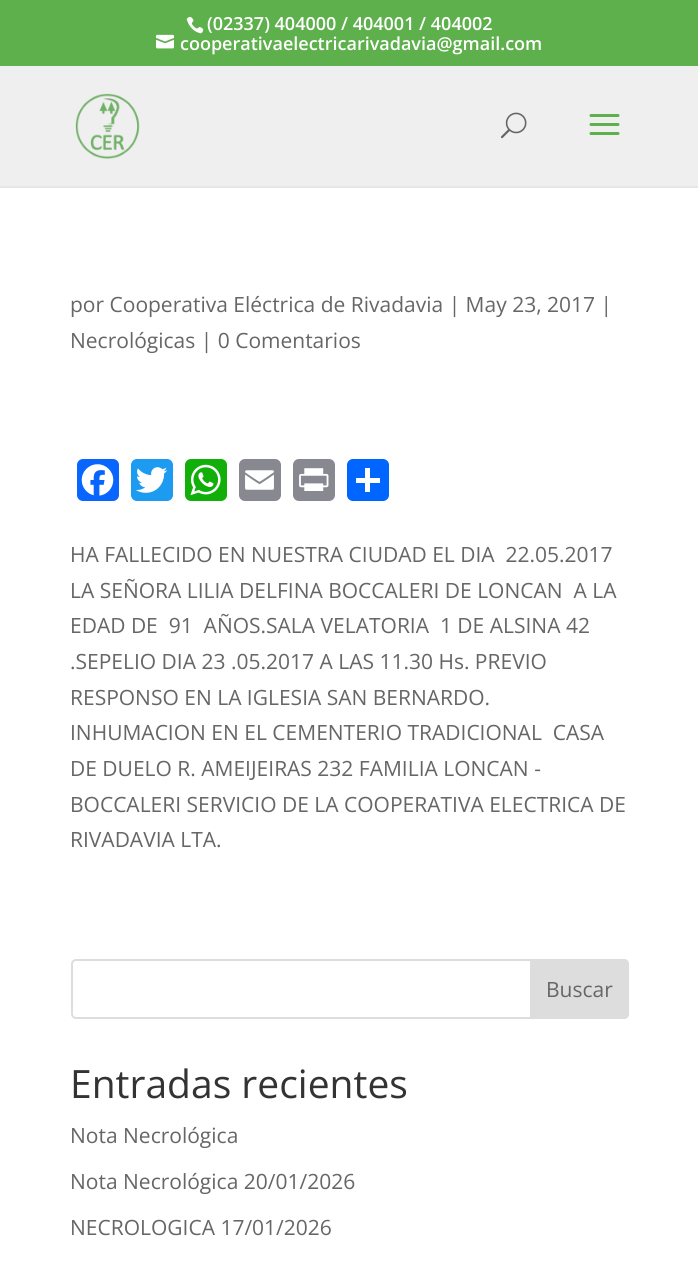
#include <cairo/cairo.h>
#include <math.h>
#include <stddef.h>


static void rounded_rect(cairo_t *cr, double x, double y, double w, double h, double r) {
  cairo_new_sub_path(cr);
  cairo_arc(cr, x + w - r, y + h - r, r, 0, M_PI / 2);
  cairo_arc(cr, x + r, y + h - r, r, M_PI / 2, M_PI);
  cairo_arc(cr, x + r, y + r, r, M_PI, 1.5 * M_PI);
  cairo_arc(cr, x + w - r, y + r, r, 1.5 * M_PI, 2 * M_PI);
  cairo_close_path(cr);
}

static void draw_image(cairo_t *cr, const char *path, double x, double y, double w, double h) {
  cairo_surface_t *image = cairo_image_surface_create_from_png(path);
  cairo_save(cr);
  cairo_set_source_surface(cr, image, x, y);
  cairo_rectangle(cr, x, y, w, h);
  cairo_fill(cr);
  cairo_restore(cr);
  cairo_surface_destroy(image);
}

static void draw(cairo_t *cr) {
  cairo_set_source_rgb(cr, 1, 1, 1);
  cairo_paint(cr);
  cairo_set_source_rgb(cr, 94 / 255.0, 176 / 255.0, 77 / 255.0);
  cairo_rectangle(cr, 0, 0, 698, 66);
  cairo_fill(cr);
  draw_image(cr, "images/1.png", 186, 16, 18, 18);
  draw_image(cr, "images/2.png", 156, 34, 18, 15);
  cairo_set_source_rgb(cr, 230 / 255.0, 230 / 255.0, 230 / 255.0);
  cairo_rectangle(cr, 0, 186, 698, 2);
  cairo_fill(cr);
  cairo_set_source_rgb(cr, 239 / 255.0, 239 / 255.0, 239 / 255.0);
  cairo_rectangle(cr, 0, 66, 698, 120);
  cairo_fill(cr);
  draw_image(cr, "images/3.png", 75, 93, 65, 66);
  draw_image(cr, "images/4.png", 500, 112, 27, 27);
  draw_image(cr, "images/5.png", 589, 114, 31, 21);
  cairo_set_source_rgb(cr, 8 / 255.0, 102 / 255.0, 1);
  rounded_rect(cr, 77, 459, 42, 42, 6);
  cairo_fill(cr);
  draw_image(cr, "images/6.png", 81, 464, 33, 32);
  cairo_set_source_rgb(cr, 29 / 255.0, 155 / 255.0, 240 / 255.0);
  rounded_rect(cr, 131, 459, 42, 42, 6);
  cairo_fill(cr);
  draw_image(cr, "images/7.png", 136, 467, 32, 26);
  cairo_set_source_rgb(cr, 18 / 255.0, 175 / 255.0, 10 / 255.0);
  rounded_rect(cr, 185, 459, 42, 42, 6);
  cairo_fill(cr);
  draw_image(cr, "images/8.png", 190, 464, 31, 32);
  cairo_set_source_rgb(cr, 136 / 255.0, 137 / 255.0, 144 / 255.0);
  rounded_rect(cr, 239, 459, 42, 42, 6);
  cairo_fill(cr);
  draw_image(cr, "images/9.png", 245, 470, 29, 20);
  rounded_rect(cr, 293, 459, 42, 42, 6);
  cairo_fill(cr);
  draw_image(cr, "images/10.png", 299, 468, 30, 23);
  cairo_set_source_rgb(cr, 1 / 255.0, 102 / 255.0, 1);
  rounded_rect(cr, 347, 459, 42, 42, 6);
  cairo_fill(cr);
  cairo_set_source_rgb(cr, 1, 1, 1);
  cairo_rectangle(cr, 365, 468, 5, 24);
  cairo_fill(cr);
  cairo_rectangle(cr, 356, 478, 24, 5);
  cairo_fill(cr);
  rounded_rect(cr, 72, 960, 556, 58, 4);
  cairo_set_source_rgb(cr, 221 / 255.0, 221 / 255.0, 221 / 255.0);
  cairo_stroke(cr);
  cairo_new_path(cr);
  cairo_move_to(cr, 531, 960);
  cairo_line_to(cr, 624, 960);
  cairo_curve_to(cr, 626, 960, 628, 962, 628, 964);
  cairo_line_to(cr, 628, 1014);
  cairo_curve_to(cr, 628, 1016, 626, 1018, 624, 1018);
  cairo_line_to(cr, 531, 1018);
  cairo_close_path(cr);
  cairo_fill_preserve(cr);
  cairo_stroke(cr);
  cairo_select_font_face(cr, "Open Sans SemiBold", CAIRO_FONT_SLANT_NORMAL, CAIRO_FONT_WEIGHT_NORMAL);
  cairo_set_font_size(cr, 18);
  cairo_set_source_rgb(cr, 1, 1, 1);
  cairo_move_to(cr, 207, 30);
  cairo_show_text(cr, "(02337) 404000 / 404001 / 404002");
  cairo_move_to(cr, 180, 50);
  cairo_show_text(cr, "cooperativaelectricarivadavia@gmail.com");
  cairo_select_font_face(cr, "Open Sans", CAIRO_FONT_SLANT_NORMAL, CAIRO_FONT_WEIGHT_NORMAL);
  cairo_set_font_size(cr, 21);
  cairo_set_source_rgb(cr, 102 / 255.0, 102 / 255.0, 102 / 255.0);
  cairo_move_to(cr, 70, 312);
  cairo_show_text(cr, "por Cooperativa Eléctrica de Rivadavia | May 23, 2017 |");
  cairo_move_to(cr, 70, 348);
  cairo_show_text(cr, "Necrológicas | 0 Comentarios");
  cairo_move_to(cr, 70, 562);
  cairo_show_text(cr, "HA FALLECIDO EN NUESTRA CIUDAD EL DIA  22.05.2017");
  cairo_move_to(cr, 70, 598);
  cairo_show_text(cr, "LA SEÑORA LILIA DELFINA BOCCALERI DE LONCAN  A LA");
  cairo_move_to(cr, 70, 633);
  cairo_show_text(cr, "EDAD DE  91  AÑOS.SALA VELATORIA  1 DE ALSINA 42");
  cairo_move_to(cr, 70, 669);
  cairo_show_text(cr, ".SEPELIO DIA 23 .05.2017 A LAS 11.30 Hs. PREVIO");
  cairo_move_to(cr, 70, 705);
  cairo_show_text(cr, "RESPONSO EN LA IGLESIA SAN BERNARDO.");
  cairo_move_to(cr, 70, 740);
  cairo_show_text(cr, "INHUMACION EN EL CEMENTERIO TRADICIONAL  CASA");
  cairo_move_to(cr, 70, 776);
  cairo_show_text(cr, "DE DUELO R. AMEIJEIRAS 232 FAMILIA LONCAN -");
  cairo_move_to(cr, 70, 812);
  cairo_show_text(cr, "BOCCALERI SERVICIO DE LA COOPERATIVA ELECTRICA DE");
  cairo_move_to(cr, 70, 847);
  cairo_show_text(cr, "RIVADAVIA LTA.");
  cairo_move_to(cr, 546, 997);
  cairo_show_text(cr, "Buscar");
  cairo_set_font_size(cr, 39);
  cairo_set_source_rgb(cr, 51 / 255.0, 51 / 255.0, 51 / 255.0);
  cairo_move_to(cr, 70, 1098);
  cairo_show_text(cr, "Entradas recientes");
  cairo_set_font_size(cr, 21);
  cairo_set_source_rgb(cr, 102 / 255.0, 102 / 255.0, 102 / 255.0);
  cairo_move_to(cr, 70, 1143);
  cairo_show_text(cr, "Nota Necrológica");
  cairo_move_to(cr, 70, 1189);
  cairo_show_text(cr, "Nota Necrológica 20/01/2026");
  cairo_move_to(cr, 70, 1235);
  cairo_show_text(cr, "NECROLOGICA 17/01/2026");
}

int main(void) {
  cairo_surface_t *surface = cairo_image_surface_create(CAIRO_FORMAT_RGB24, 698, 1261);
  cairo_t *cr = cairo_create(surface);
  cairo_font_options_t *options = cairo_font_options_create();
  cairo_font_options_set_hint_metrics(options, CAIRO_HINT_METRICS_OFF);
  cairo_font_options_set_hint_style(options, CAIRO_HINT_STYLE_NONE);
  cairo_set_font_options(cr, options);
  cairo_set_miter_limit(cr, 4);
  draw(cr);
  cairo_surface_write_to_png(surface, "out.png");
  cairo_font_options_destroy(options);
  cairo_destroy(cr);
  cairo_surface_destroy(surface);
  return 0;
}
